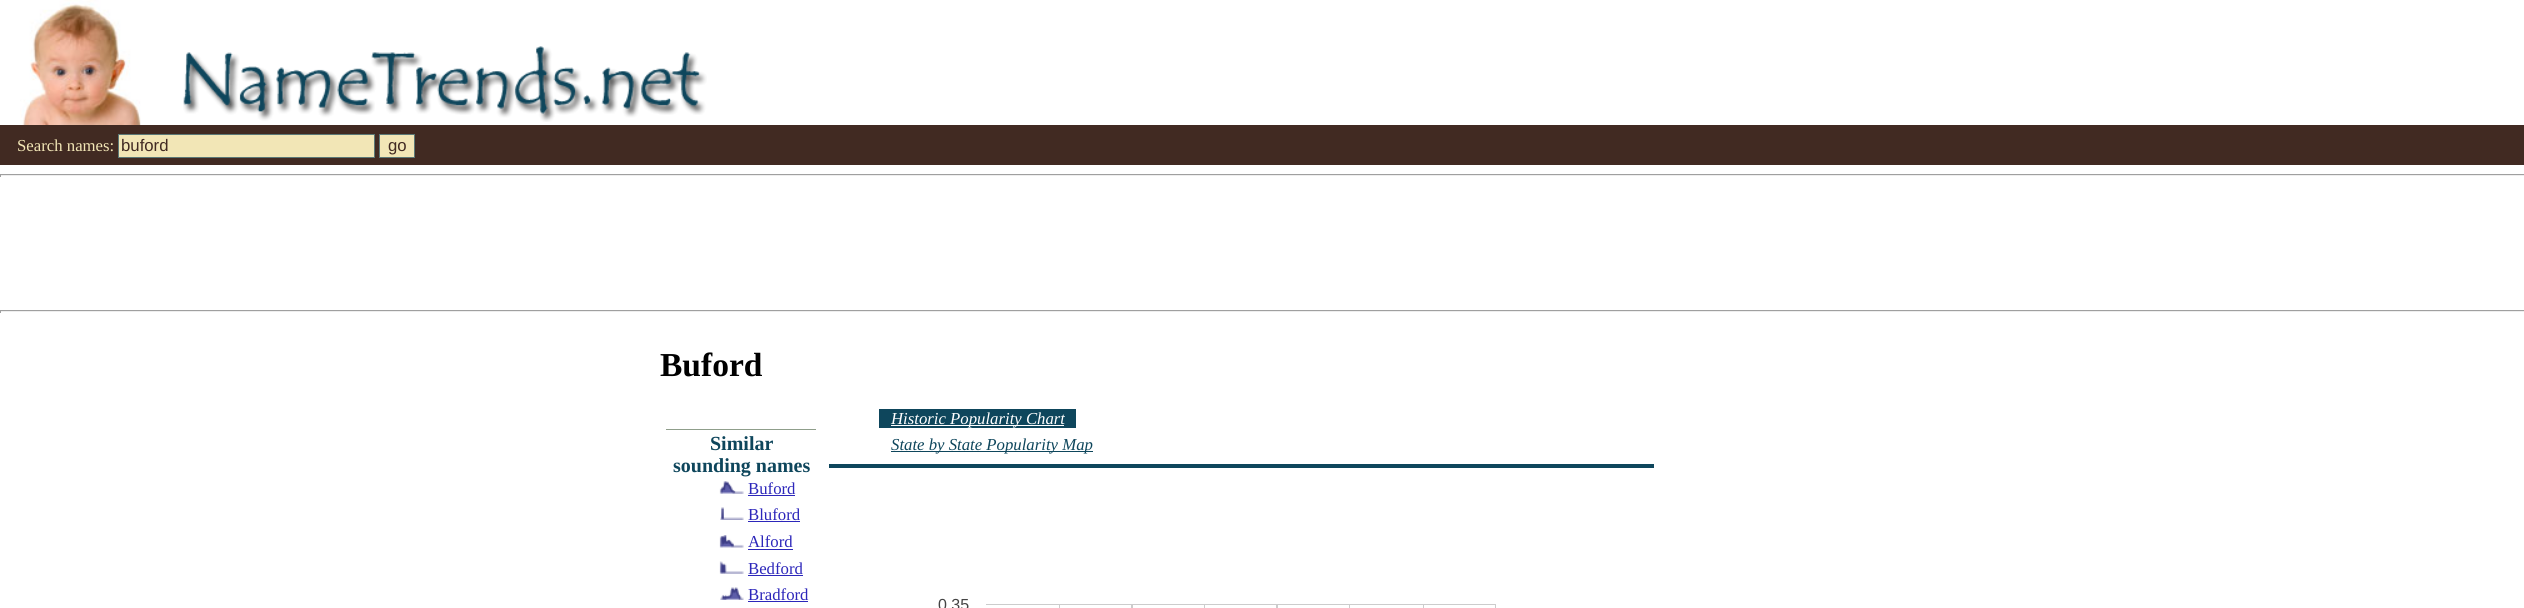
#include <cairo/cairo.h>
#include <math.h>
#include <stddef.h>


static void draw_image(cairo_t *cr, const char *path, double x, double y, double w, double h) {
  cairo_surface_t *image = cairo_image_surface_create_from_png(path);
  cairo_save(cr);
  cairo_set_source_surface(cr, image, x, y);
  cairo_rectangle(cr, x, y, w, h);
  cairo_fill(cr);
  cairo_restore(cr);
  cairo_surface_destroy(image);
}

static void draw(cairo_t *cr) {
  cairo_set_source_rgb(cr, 1, 1, 1);
  cairo_paint(cr);
  draw_image(cr, "images/1.png", 20, 0, 121, 125);
  draw_image(cr, "images/2.png", 183, 46, 524, 76);
  cairo_set_source_rgb(cr, 65 / 255.0, 42 / 255.0, 34 / 255.0);
  cairo_rectangle(cr, 0, 125, 2524, 40);
  cairo_fill(cr);
  cairo_set_source_rgb(cr, 242 / 255.0, 230 / 255.0, 182 / 255.0);
  cairo_rectangle(cr, 118.5, 134.5, 256, 23);
  cairo_fill_preserve(cr);
  cairo_set_source_rgb(cr, 91 / 255.0, 120 / 255.0, 118 / 255.0);
  cairo_set_line_width(cr, 1);
  cairo_stroke(cr);
  cairo_set_source_rgb(cr, 242 / 255.0, 230 / 255.0, 182 / 255.0);
  cairo_rectangle(cr, 379.5, 134.5, 35, 23);
  cairo_fill_preserve(cr);
  cairo_set_source_rgb(cr, 91 / 255.0, 120 / 255.0, 118 / 255.0);
  cairo_stroke(cr);
  cairo_set_source_rgb(cr, 159 / 255.0, 159 / 255.0, 159 / 255.0);
  cairo_rectangle(cr, 0, 174, 2524, 1);
  cairo_fill(cr);
  cairo_set_source_rgb(cr, 238 / 255.0, 238 / 255.0, 238 / 255.0);
  cairo_rectangle(cr, 0, 175, 2524, 1);
  cairo_fill(cr);
  cairo_set_source_rgb(cr, 159 / 255.0, 159 / 255.0, 159 / 255.0);
  cairo_rectangle(cr, 0, 174, 1, 3);
  cairo_fill(cr);
  cairo_rectangle(cr, 0, 310, 2524, 1);
  cairo_fill(cr);
  cairo_set_source_rgb(cr, 238 / 255.0, 238 / 255.0, 238 / 255.0);
  cairo_rectangle(cr, 0, 311, 2524, 1);
  cairo_fill(cr);
  cairo_set_source_rgb(cr, 159 / 255.0, 159 / 255.0, 159 / 255.0);
  cairo_rectangle(cr, 0, 310, 1, 3);
  cairo_fill(cr);
  cairo_set_source_rgb(cr, 143 / 255.0, 158 / 255.0, 139 / 255.0);
  cairo_rectangle(cr, 666, 429, 150, 1);
  cairo_fill(cr);
  draw_image(cr, "images/3.png", 719, 481, 25, 13);
  cairo_set_source_rgb(cr, 44 / 255.0, 38 / 255.0, 186 / 255.0);
  cairo_rectangle(cr, 748, 495, 47, 1);
  cairo_fill(cr);
  draw_image(cr, "images/4.png", 720, 507, 24, 13);
  cairo_rectangle(cr, 748, 521, 52, 1);
  cairo_fill(cr);
  draw_image(cr, "images/5.png", 719, 535, 25, 13);
  cairo_rectangle(cr, 748, 549, 45, 1);
  cairo_fill(cr);
  draw_image(cr, "images/6.png", 719, 561, 25, 13);
  cairo_rectangle(cr, 748, 575, 55, 1);
  cairo_fill(cr);
  draw_image(cr, "images/7.png", 720, 587, 24, 13);
  cairo_rectangle(cr, 748, 601, 60, 1);
  cairo_fill(cr);
  cairo_set_source_rgb(cr, 14 / 255.0, 70 / 255.0, 92 / 255.0);
  cairo_rectangle(cr, 829, 464, 825, 4);
  cairo_fill(cr);
  cairo_rectangle(cr, 879, 409, 197, 19);
  cairo_fill(cr);
  cairo_set_source_rgb(cr, 1, 1, 1);
  cairo_rectangle(cr, 891, 425, 173, 1);
  cairo_fill(cr);
  cairo_set_source_rgb(cr, 14 / 255.0, 70 / 255.0, 92 / 255.0);
  cairo_rectangle(cr, 891, 451, 202, 1);
  cairo_fill(cr);
  draw_image(cr, "images/8.png", 986, 604, 510, 4);
  cairo_select_font_face(cr, "Liberation Serif", CAIRO_FONT_SLANT_NORMAL, CAIRO_FONT_WEIGHT_NORMAL);
  cairo_set_font_size(cr, 16.75);
  cairo_set_source_rgb(cr, 242 / 255.0, 230 / 255.0, 182 / 255.0);
  cairo_move_to(cr, 17, 151);
  cairo_show_text(cr, "Search names:");
  cairo_select_font_face(cr, "Liberation Sans", CAIRO_FONT_SLANT_NORMAL, CAIRO_FONT_WEIGHT_NORMAL);
  cairo_set_source_rgb(cr, 65 / 255.0, 42 / 255.0, 34 / 255.0);
  cairo_move_to(cr, 121, 151);
  cairo_show_text(cr, "buford");
  cairo_move_to(cr, 388, 151);
  cairo_show_text(cr, "go");
  cairo_select_font_face(cr, "Liberation Serif", CAIRO_FONT_SLANT_NORMAL, CAIRO_FONT_WEIGHT_BOLD);
  cairo_set_font_size(cr, 33.5);
  cairo_set_source_rgb(cr, 0, 0, 0);
  cairo_move_to(cr, 660, 376);
  cairo_show_text(cr, "Buford");
  cairo_set_font_size(cr, 20);
  cairo_set_source_rgb(cr, 14 / 255.0, 70 / 255.0, 92 / 255.0);
  cairo_move_to(cr, 710, 450);
  cairo_show_text(cr, "Similar");
  cairo_move_to(cr, 673, 472);
  cairo_show_text(cr, "sounding names");
  cairo_select_font_face(cr, "Liberation Serif", CAIRO_FONT_SLANT_NORMAL, CAIRO_FONT_WEIGHT_NORMAL);
  cairo_set_font_size(cr, 16.75);
  cairo_set_source_rgb(cr, 44 / 255.0, 38 / 255.0, 186 / 255.0);
  cairo_move_to(cr, 748, 494);
  cairo_show_text(cr, "Buford");
  cairo_move_to(cr, 748, 520);
  cairo_show_text(cr, "Bluford");
  cairo_move_to(cr, 748, 547);
  cairo_show_text(cr, "Alford");
  cairo_move_to(cr, 748, 574);
  cairo_show_text(cr, "Bedford");
  cairo_move_to(cr, 748, 600);
  cairo_show_text(cr, "Bradford");
  cairo_select_font_face(cr, "Liberation Serif", CAIRO_FONT_SLANT_ITALIC, CAIRO_FONT_WEIGHT_NORMAL);
  cairo_set_source_rgb(cr, 1, 1, 1);
  cairo_move_to(cr, 891, 424);
  cairo_show_text(cr, "Historic Popularity Chart");
  cairo_set_source_rgb(cr, 14 / 255.0, 70 / 255.0, 92 / 255.0);
  cairo_move_to(cr, 891, 450);
  cairo_show_text(cr, "State by State Popularity Map");
  cairo_select_font_face(cr, "Liberation Sans", CAIRO_FONT_SLANT_NORMAL, CAIRO_FONT_WEIGHT_NORMAL);
  cairo_set_font_size(cr, 16);
  cairo_set_source_rgb(cr, 68 / 255.0, 68 / 255.0, 68 / 255.0);
  cairo_move_to(cr, 938, 610);
  cairo_show_text(cr, "0.35");
}

int main(void) {
  cairo_surface_t *surface = cairo_image_surface_create(CAIRO_FORMAT_RGB24, 2524, 608);
  cairo_t *cr = cairo_create(surface);
  cairo_font_options_t *options = cairo_font_options_create();
  cairo_font_options_set_hint_metrics(options, CAIRO_HINT_METRICS_OFF);
  cairo_font_options_set_hint_style(options, CAIRO_HINT_STYLE_NONE);
  cairo_set_font_options(cr, options);
  cairo_set_miter_limit(cr, 4);
  draw(cr);
  cairo_surface_write_to_png(surface, "out.png");
  cairo_font_options_destroy(options);
  cairo_destroy(cr);
  cairo_surface_destroy(surface);
  return 0;
}
